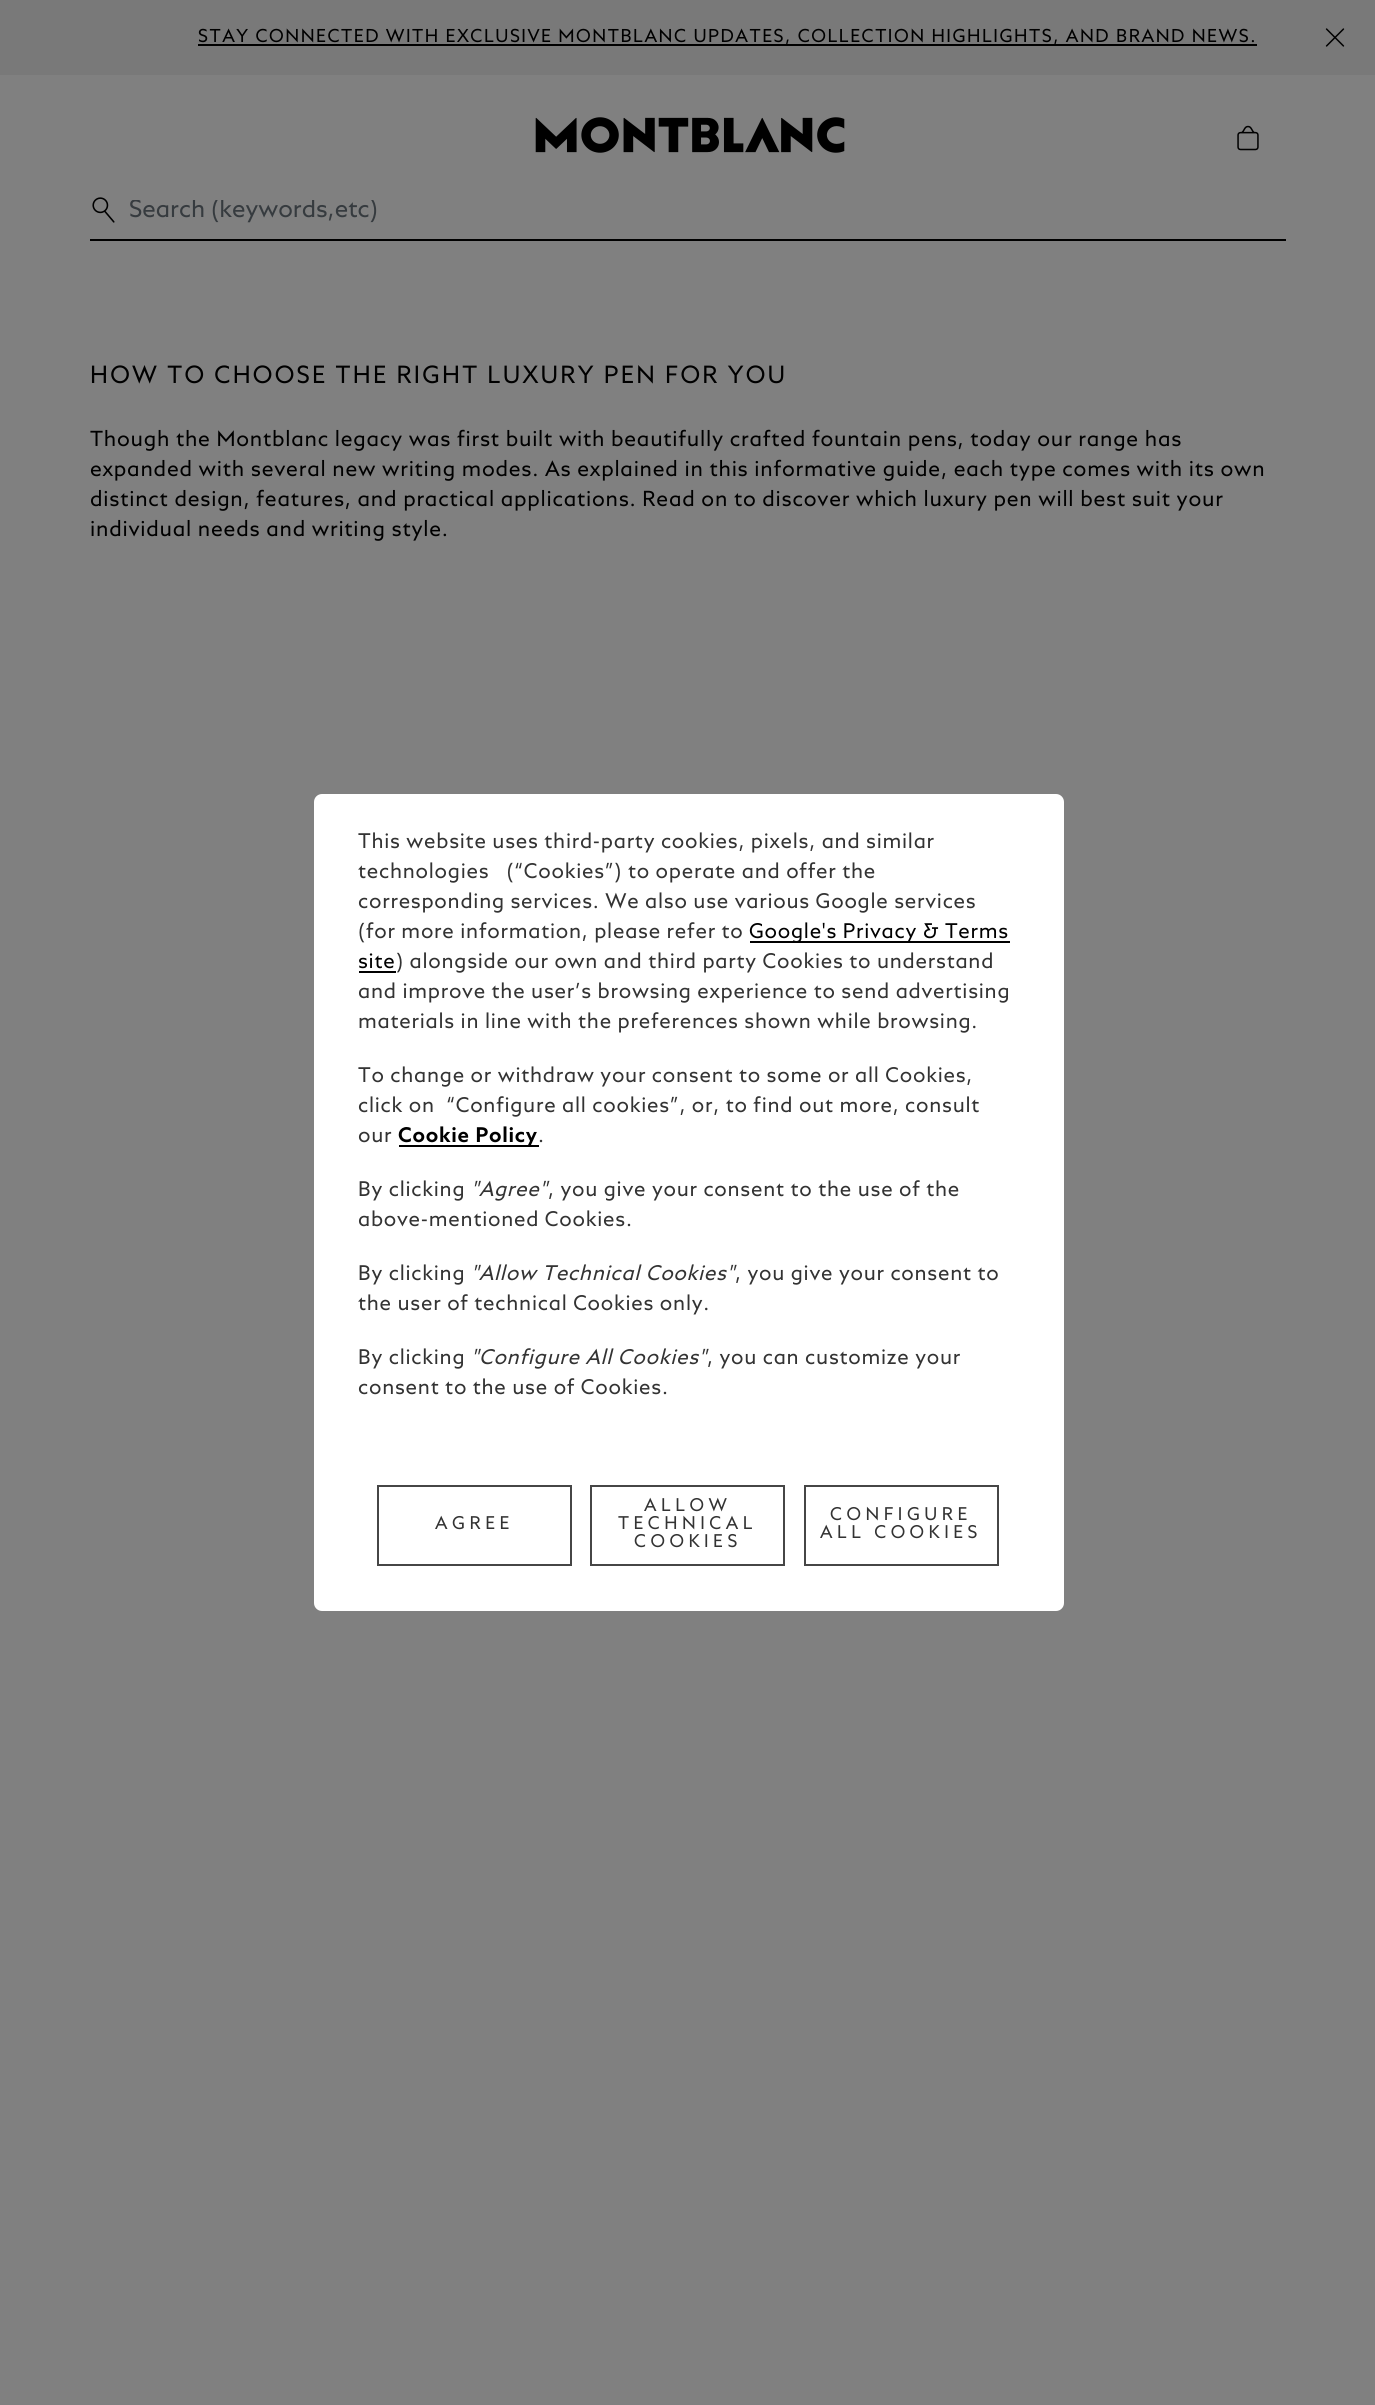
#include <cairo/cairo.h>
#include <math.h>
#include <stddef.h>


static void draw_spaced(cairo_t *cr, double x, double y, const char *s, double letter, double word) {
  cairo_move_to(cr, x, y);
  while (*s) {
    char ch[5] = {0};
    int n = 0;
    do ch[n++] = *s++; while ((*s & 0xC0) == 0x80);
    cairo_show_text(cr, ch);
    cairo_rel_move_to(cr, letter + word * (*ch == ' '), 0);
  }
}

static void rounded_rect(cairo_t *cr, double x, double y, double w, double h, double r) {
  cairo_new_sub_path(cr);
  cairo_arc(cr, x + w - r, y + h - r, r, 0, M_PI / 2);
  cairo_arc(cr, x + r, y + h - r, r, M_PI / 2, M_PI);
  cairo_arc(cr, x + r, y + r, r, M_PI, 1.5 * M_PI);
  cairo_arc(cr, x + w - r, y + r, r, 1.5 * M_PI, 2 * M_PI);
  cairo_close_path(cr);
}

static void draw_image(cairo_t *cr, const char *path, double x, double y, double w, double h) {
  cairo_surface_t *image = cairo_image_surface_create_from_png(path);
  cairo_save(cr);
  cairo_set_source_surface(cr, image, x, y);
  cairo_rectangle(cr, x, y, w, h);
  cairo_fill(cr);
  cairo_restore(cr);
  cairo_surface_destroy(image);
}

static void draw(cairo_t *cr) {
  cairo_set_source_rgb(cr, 128 / 255.0, 128 / 255.0, 128 / 255.0);
  cairo_paint(cr);
  cairo_set_source_rgb(cr, 121 / 255.0, 121 / 255.0, 121 / 255.0);
  cairo_rectangle(cr, 0, 0, 1375, 75);
  cairo_fill(cr);
  cairo_set_source_rgb(cr, 0, 0, 0);
  cairo_rectangle(cr, 198, 44, 1059, 2);
  cairo_fill(cr);
  draw_image(cr, "images/1.png", 1325, 28, 20, 19);
  draw_image(cr, "images/2.png", 535, 117, 310, 36);
  draw_image(cr, "images/3.png", 1237, 125, 22, 26);
  draw_image(cr, "images/4.png", 92, 197, 23, 26);
  cairo_rectangle(cr, 90, 239, 1196, 2);
  cairo_fill(cr);
  cairo_set_source_rgb(cr, 1, 1, 1);
  rounded_rect(cr, 314, 794, 750, 817, 8);
  cairo_fill(cr);
  cairo_set_source_rgb(cr, 0, 0, 0);
  cairo_rectangle(cr, 750, 941, 260, 2);
  cairo_fill(cr);
  cairo_rectangle(cr, 359, 971, 37, 2);
  cairo_fill(cr);
  cairo_rectangle(cr, 399, 1145, 140, 2);
  cairo_fill(cr);
  cairo_rectangle(cr, 378, 1486, 193, 79);
  cairo_set_source_rgb(cr, 70 / 255.0, 70 / 255.0, 70 / 255.0);
  cairo_stroke(cr);
  cairo_rectangle(cr, 591, 1486, 193, 79);
  cairo_stroke(cr);
  cairo_rectangle(cr, 805, 1486, 193, 79);
  cairo_stroke(cr);
  cairo_select_font_face(cr, "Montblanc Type", CAIRO_FONT_SLANT_NORMAL, CAIRO_FONT_WEIGHT_NORMAL);
  cairo_set_font_size(cr, 18);
  cairo_set_source_rgb(cr, 0, 0, 0);
  draw_spaced(cr, 198, 42, "STAY CONNECTED WITH EXCLUSIVE MONTBLANC UPDATES, COLLECTION HIGHLIGHTS, AND BRAND NEWS.", 1.5, 0);
  cairo_save(cr);
  cairo_rectangle(cr, 129, 200, 1031, 24);
  cairo_clip(cr);
  cairo_set_font_size(cr, 24);
  cairo_set_source_rgb(cr, 54 / 255.0, 59 / 255.0, 63 / 255.0);
  cairo_move_to(cr, 129, 217);
  cairo_show_text(cr, "Search (keywords,etc)");
  cairo_restore(cr);
  cairo_set_font_size(cr, 24);
  draw_spaced(cr, 90, 383, "HOW TO CHOOSE THE RIGHT LUXURY PEN FOR YOU", 2.25, 0);
  cairo_set_font_size(cr, 21);
  draw_spaced(cr, 90, 446, "Though the Montblanc legacy was first built with beautifully crafted fountain pens, today our range has", 0.75, 0);
  draw_spaced(cr, 90, 476, "expanded with several new writing modes. As explained in this informative guide, each type comes with its own", 0.75, 0);
  draw_spaced(cr, 90, 506, "distinct design, features, and practical applications. Read on to discover which luxury pen will best suit your", 0.75, 0);
  draw_spaced(cr, 90, 536, "individual needs and writing style.", 0.75, 0);
  cairo_set_font_size(cr, 20.4);
  cairo_set_source_rgb(cr, 51 / 255.0, 51 / 255.0, 51 / 255.0);
  draw_spaced(cr, 358, 848, "This website uses third-party cookies, pixels, and similar", 0.75, 0);
  draw_spaced(cr, 358, 878, "technologies   (“Cookies”) to operate and offer the", 0.75, 0);
  draw_spaced(cr, 358, 908, "corresponding services. We also use various Google services", 0.75, 0);
  draw_spaced(cr, 358, 938, "(for more information, please refer to", 0.75, 0);
  cairo_set_source_rgb(cr, 0, 0, 0);
  draw_spaced(cr, 749, 938, "Google's Privacy & Terms", 0.75, 0);
  draw_spaced(cr, 358, 968, "site", 0.75, 0);
  cairo_set_source_rgb(cr, 51 / 255.0, 51 / 255.0, 51 / 255.0);
  draw_spaced(cr, 396, 968, ") alongside our own and third party Cookies to understand", 0.75, 0);
  draw_spaced(cr, 358, 998, "and improve the user’s browsing experience to send advertising", 0.75, 0);
  draw_spaced(cr, 358, 1028, "materials in line with the preferences shown while browsing.", 0.75, 0);
  draw_spaced(cr, 358, 1082, "To change or withdraw your consent to some or all Cookies,", 0.75, 0);
  draw_spaced(cr, 358, 1112, "click on  “Configure all cookies”, or, to find out more, consult", 0.75, 0);
  draw_spaced(cr, 358, 1142, "our", 0.75, 0);
  cairo_select_font_face(cr, "Montblanc Type", CAIRO_FONT_SLANT_NORMAL, CAIRO_FONT_WEIGHT_BOLD);
  cairo_set_source_rgb(cr, 0, 0, 0);
  draw_spaced(cr, 398, 1142, "Cookie Policy", 0.75, 0);
  cairo_select_font_face(cr, "Montblanc Type", CAIRO_FONT_SLANT_NORMAL, CAIRO_FONT_WEIGHT_NORMAL);
  cairo_set_source_rgb(cr, 51 / 255.0, 51 / 255.0, 51 / 255.0);
  draw_spaced(cr, 538, 1142, ".", 0.75, 0);
  draw_spaced(cr, 358, 1196, "By clicking", 0.75, 0);
  cairo_select_font_face(cr, "Montblanc Type", CAIRO_FONT_SLANT_ITALIC, CAIRO_FONT_WEIGHT_NORMAL);
  draw_spaced(cr, 471, 1196, "\"Agree\"", 0.75, 0);
  cairo_select_font_face(cr, "Montblanc Type", CAIRO_FONT_SLANT_NORMAL, CAIRO_FONT_WEIGHT_NORMAL);
  draw_spaced(cr, 548, 1196, ", you give your consent to the use of the", 0.75, 0);
  draw_spaced(cr, 358, 1226, "above-mentioned Cookies.", 0.75, 0);
  draw_spaced(cr, 358, 1280, "By clicking", 0.75, 0);
  cairo_select_font_face(cr, "Montblanc Type", CAIRO_FONT_SLANT_ITALIC, CAIRO_FONT_WEIGHT_NORMAL);
  draw_spaced(cr, 471, 1280, "\"Allow Technical Cookies\"", 0.75, 0);
  cairo_select_font_face(cr, "Montblanc Type", CAIRO_FONT_SLANT_NORMAL, CAIRO_FONT_WEIGHT_NORMAL);
  draw_spaced(cr, 735, 1280, ", you give your consent to", 0.75, 0);
  draw_spaced(cr, 358, 1310, "the user of technical Cookies only.", 0.75, 0);
  draw_spaced(cr, 358, 1364, "By clicking", 0.75, 0);
  cairo_select_font_face(cr, "Montblanc Type", CAIRO_FONT_SLANT_ITALIC, CAIRO_FONT_WEIGHT_NORMAL);
  draw_spaced(cr, 471, 1364, "\"Configure All Cookies\"", 0.75, 0);
  cairo_select_font_face(cr, "Montblanc Type", CAIRO_FONT_SLANT_NORMAL, CAIRO_FONT_WEIGHT_NORMAL);
  draw_spaced(cr, 707, 1364, ", you can customize your", 0.75, 0);
  draw_spaced(cr, 358, 1394, "consent to the use of Cookies.", 0.75, 0);
  cairo_set_font_size(cr, 17.75);
  draw_spaced(cr, 435, 1529, "AGREE", 4.5, 0);
  draw_spaced(cr, 644, 1511, "ALLOW", 4.5, 0);
  draw_spaced(cr, 618, 1529, "TECHNICAL", 4.5, 0);
  draw_spaced(cr, 634, 1547, "COOKIES", 4.5, 0);
  draw_spaced(cr, 830, 1520, "CONFIGURE", 4.5, 0);
  draw_spaced(cr, 820, 1538, "ALL COOKIES", 4.5, 0);
}

int main(void) {
  cairo_surface_t *surface = cairo_image_surface_create(CAIRO_FORMAT_RGB24, 1375, 2405);
  cairo_t *cr = cairo_create(surface);
  cairo_font_options_t *options = cairo_font_options_create();
  cairo_font_options_set_hint_metrics(options, CAIRO_HINT_METRICS_OFF);
  cairo_font_options_set_hint_style(options, CAIRO_HINT_STYLE_NONE);
  cairo_set_font_options(cr, options);
  cairo_set_miter_limit(cr, 4);
  draw(cr);
  cairo_surface_write_to_png(surface, "out.png");
  cairo_font_options_destroy(options);
  cairo_destroy(cr);
  cairo_surface_destroy(surface);
  return 0;
}
